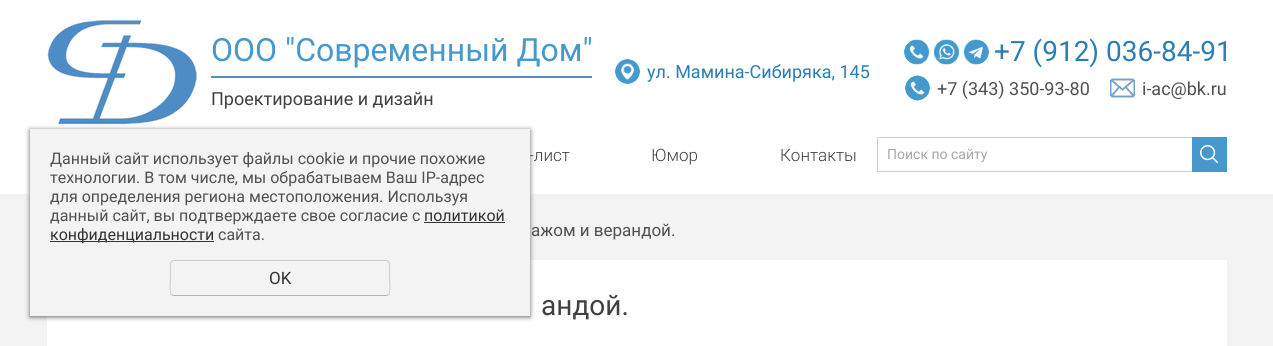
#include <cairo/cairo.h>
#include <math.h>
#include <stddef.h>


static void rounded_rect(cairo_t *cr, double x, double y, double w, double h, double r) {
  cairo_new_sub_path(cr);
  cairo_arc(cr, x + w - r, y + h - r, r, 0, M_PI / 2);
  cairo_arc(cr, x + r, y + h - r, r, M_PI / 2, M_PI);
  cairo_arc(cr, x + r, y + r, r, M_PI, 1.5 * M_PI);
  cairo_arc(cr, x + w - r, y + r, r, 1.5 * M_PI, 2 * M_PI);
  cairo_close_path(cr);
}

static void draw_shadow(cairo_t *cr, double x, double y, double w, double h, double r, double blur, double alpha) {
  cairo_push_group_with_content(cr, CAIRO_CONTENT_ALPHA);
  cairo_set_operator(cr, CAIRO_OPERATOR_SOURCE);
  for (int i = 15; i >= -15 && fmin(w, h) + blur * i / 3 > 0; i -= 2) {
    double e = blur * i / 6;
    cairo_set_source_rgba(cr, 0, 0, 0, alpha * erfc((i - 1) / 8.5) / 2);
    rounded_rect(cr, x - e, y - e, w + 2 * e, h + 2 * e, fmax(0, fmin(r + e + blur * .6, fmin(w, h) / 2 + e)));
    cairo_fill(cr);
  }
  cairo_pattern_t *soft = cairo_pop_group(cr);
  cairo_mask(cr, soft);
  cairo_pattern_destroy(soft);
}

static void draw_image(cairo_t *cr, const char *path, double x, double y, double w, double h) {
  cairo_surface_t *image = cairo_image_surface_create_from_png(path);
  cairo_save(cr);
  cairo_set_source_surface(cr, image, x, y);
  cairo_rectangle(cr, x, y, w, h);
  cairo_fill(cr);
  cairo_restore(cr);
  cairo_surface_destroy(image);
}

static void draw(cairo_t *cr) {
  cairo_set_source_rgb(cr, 243 / 255.0, 243 / 255.0, 243 / 255.0);
  cairo_paint(cr);
  cairo_set_source_rgb(cr, 1, 1, 1);
  cairo_rectangle(cr, 0, 0, 1273, 194);
  cairo_fill(cr);
  draw_image(cr, "images/1.png", 47, 19, 150, 106);
  cairo_set_source_rgb(cr, 85 / 255.0, 139 / 255.0, 191 / 255.0);
  cairo_rectangle(cr, 211, 76, 381, 2);
  cairo_fill(cr);
  draw_image(cr, "images/2.png", 615, 59, 25, 25);
  draw_image(cr, "images/3.png", 904, 39, 85, 26);
  draw_image(cr, "images/4.png", 905, 75, 25, 26);
  draw_image(cr, "images/5.png", 1110, 78, 25, 20);
  cairo_rectangle(cr, 877.5, 137.5, 349, 34);
  cairo_set_source_rgb(cr, 204 / 255.0, 204 / 255.0, 204 / 255.0);
  cairo_set_line_width(cr, 1);
  cairo_stroke(cr);
  cairo_set_source_rgb(cr, 70 / 255.0, 152 / 255.0, 205 / 255.0);
  cairo_rectangle(cr, 1192, 137, 35, 35);
  cairo_fill(cr);
  draw_image(cr, "images/6.png", 1200, 145, 18, 18);
  cairo_set_source_rgb(cr, 1, 1, 1);
  cairo_rectangle(cr, 47, 260, 1180, 86);
  cairo_fill(cr);
  cairo_set_source_rgb(cr, 102 / 255.0, 102 / 255.0, 102 / 255.0);
  draw_shadow(cr, 30, 130, 500, 187, 0, 2.5, 1);
  cairo_select_font_face(cr, "Roboto", CAIRO_FONT_SLANT_NORMAL, CAIRO_FONT_WEIGHT_NORMAL);
  cairo_set_font_size(cr, 32);
  cairo_set_source_rgb(cr, 70 / 255.0, 152 / 255.0, 205 / 255.0);
  cairo_move_to(cr, 211, 61);
  cairo_show_text(cr, "ООО \"Современный Дом\"");
  cairo_set_font_size(cr, 18);
  cairo_set_source_rgb(cr, 64 / 255.0, 64 / 255.0, 64 / 255.0);
  cairo_move_to(cr, 211, 105);
  cairo_show_text(cr, "Проектирование и дизайн");
  cairo_set_source_rgb(cr, 42 / 255.0, 126 / 255.0, 180 / 255.0);
  cairo_move_to(cr, 647, 78);
  cairo_show_text(cr, "ул. Мамина-Сибиряка, 145");
  cairo_set_font_size(cr, 28);
  cairo_move_to(cr, 994, 61);
  cairo_show_text(cr, "+7 (912) 036-84-91");
  cairo_set_font_size(cr, 18);
  cairo_set_source_rgb(cr, 80 / 255.0, 80 / 255.0, 80 / 255.0);
  cairo_move_to(cr, 937, 95);
  cairo_show_text(cr, "+7 (343) 350-93-80");
  cairo_move_to(cr, 1142, 95);
  cairo_show_text(cr, "i-ac@bk.ru");
  cairo_select_font_face(cr, "Roboto Light", CAIRO_FONT_SLANT_NORMAL, CAIRO_FONT_WEIGHT_NORMAL);
  cairo_set_font_size(cr, 17);
  cairo_set_source_rgb(cr, 64 / 255.0, 64 / 255.0, 64 / 255.0);
  cairo_move_to(cr, 529, 161);
  cairo_show_text(cr, "-лист");
  cairo_move_to(cr, 651, 161);
  cairo_show_text(cr, "Юмор");
  cairo_move_to(cr, 780, 161);
  cairo_show_text(cr, "Контакты");
  cairo_select_font_face(cr, "Roboto", CAIRO_FONT_SLANT_NORMAL, CAIRO_FONT_WEIGHT_NORMAL);
  cairo_set_font_size(cr, 14);
  cairo_set_source_rgb(cr, 167 / 255.0, 167 / 255.0, 167 / 255.0);
  cairo_move_to(cr, 887, 159);
  cairo_show_text(cr, "Поиск по сайту");
  cairo_set_font_size(cr, 17);
  cairo_set_source_rgb(cr, 80 / 255.0, 80 / 255.0, 80 / 255.0);
  cairo_move_to(cr, 531, 236);
  cairo_show_text(cr, "ажом и верандой.");
  cairo_set_font_size(cr, 28);
  cairo_set_source_rgb(cr, 64 / 255.0, 64 / 255.0, 64 / 255.0);
  cairo_move_to(cr, 541, 315);
  cairo_show_text(cr, "андой.");
  cairo_set_source_rgb(cr, 243 / 255.0, 243 / 255.0, 243 / 255.0);
  cairo_rectangle(cr, 30, 129, 500, 187);
  cairo_fill(cr);
  cairo_set_font_size(cr, 16);
  cairo_set_source_rgb(cr, 80 / 255.0, 80 / 255.0, 80 / 255.0);
  cairo_move_to(cr, 50, 164);
  cairo_show_text(cr, "Данный сайт использует файлы cookie и прочие похожие");
  cairo_move_to(cr, 50, 183);
  cairo_show_text(cr, "технологии. В том числе, мы обрабатываем Ваш IP-адрес");
  cairo_move_to(cr, 50, 202);
  cairo_show_text(cr, "для определения региона местоположения. Используя");
  cairo_move_to(cr, 50, 221);
  cairo_show_text(cr, "данный сайт, вы подтверждаете свое согласие с");
  cairo_set_source_rgb(cr, 51 / 255.0, 51 / 255.0, 51 / 255.0);
  cairo_move_to(cr, 424, 221);
  cairo_show_text(cr, "политикой");
  cairo_rectangle(cr, 424, 222, 81, 1);
  cairo_fill(cr);
  cairo_rectangle(cr, 50, 241, 164, 1);
  cairo_fill(cr);
  cairo_move_to(cr, 50, 240);
  cairo_show_text(cr, "конфиденциальности");
  cairo_set_source_rgb(cr, 80 / 255.0, 80 / 255.0, 80 / 255.0);
  cairo_move_to(cr, 218, 240);
  cairo_show_text(cr, "сайта.");
  cairo_new_path(cr);
  cairo_move_to(cr, 388.5, 294.5);
  cairo_curve_to(cr, 388, 295, 387, 295.5, 386, 295.5);
  cairo_line_to(cr, 174, 295.5);
  cairo_curve_to(cr, 173, 295.5, 172, 295, 171.5, 294.5);
  cairo_set_source_rgb(cr, 179 / 255.0, 179 / 255.0, 179 / 255.0);
  cairo_stroke(cr);
  cairo_new_path(cr);
  cairo_move_to(cr, 171.5, 294.5);
  cairo_curve_to(cr, 169, 292, 170.5, 281, 170.5, 278);
  cairo_line_to(cr, 170.5, 268.5);
  cairo_curve_to(cr, 170.5, 266, 169.5, 260.5, 174, 260.5);
  cairo_line_to(cr, 386, 260.5);
  cairo_curve_to(cr, 390.5, 260.5, 389.5, 266, 389.5, 268.5);
  cairo_line_to(cr, 389.5, 278);
  cairo_curve_to(cr, 389.5, 281, 391, 292, 388.5, 294.5);
  cairo_set_source_rgb(cr, 204 / 255.0, 204 / 255.0, 204 / 255.0);
  cairo_stroke(cr);
  cairo_set_font_size(cr, 17);
  cairo_set_source_rgb(cr, 51 / 255.0, 51 / 255.0, 51 / 255.0);
  cairo_move_to(cr, 269, 284);
  cairo_show_text(cr, "OK");
}

int main(void) {
  cairo_surface_t *surface = cairo_image_surface_create(CAIRO_FORMAT_RGB24, 1273, 346);
  cairo_t *cr = cairo_create(surface);
  cairo_font_options_t *options = cairo_font_options_create();
  cairo_font_options_set_hint_metrics(options, CAIRO_HINT_METRICS_OFF);
  cairo_font_options_set_hint_style(options, CAIRO_HINT_STYLE_NONE);
  cairo_set_font_options(cr, options);
  cairo_set_miter_limit(cr, 4);
  draw(cr);
  cairo_surface_write_to_png(surface, "out.png");
  cairo_font_options_destroy(options);
  cairo_destroy(cr);
  cairo_surface_destroy(surface);
  return 0;
}
